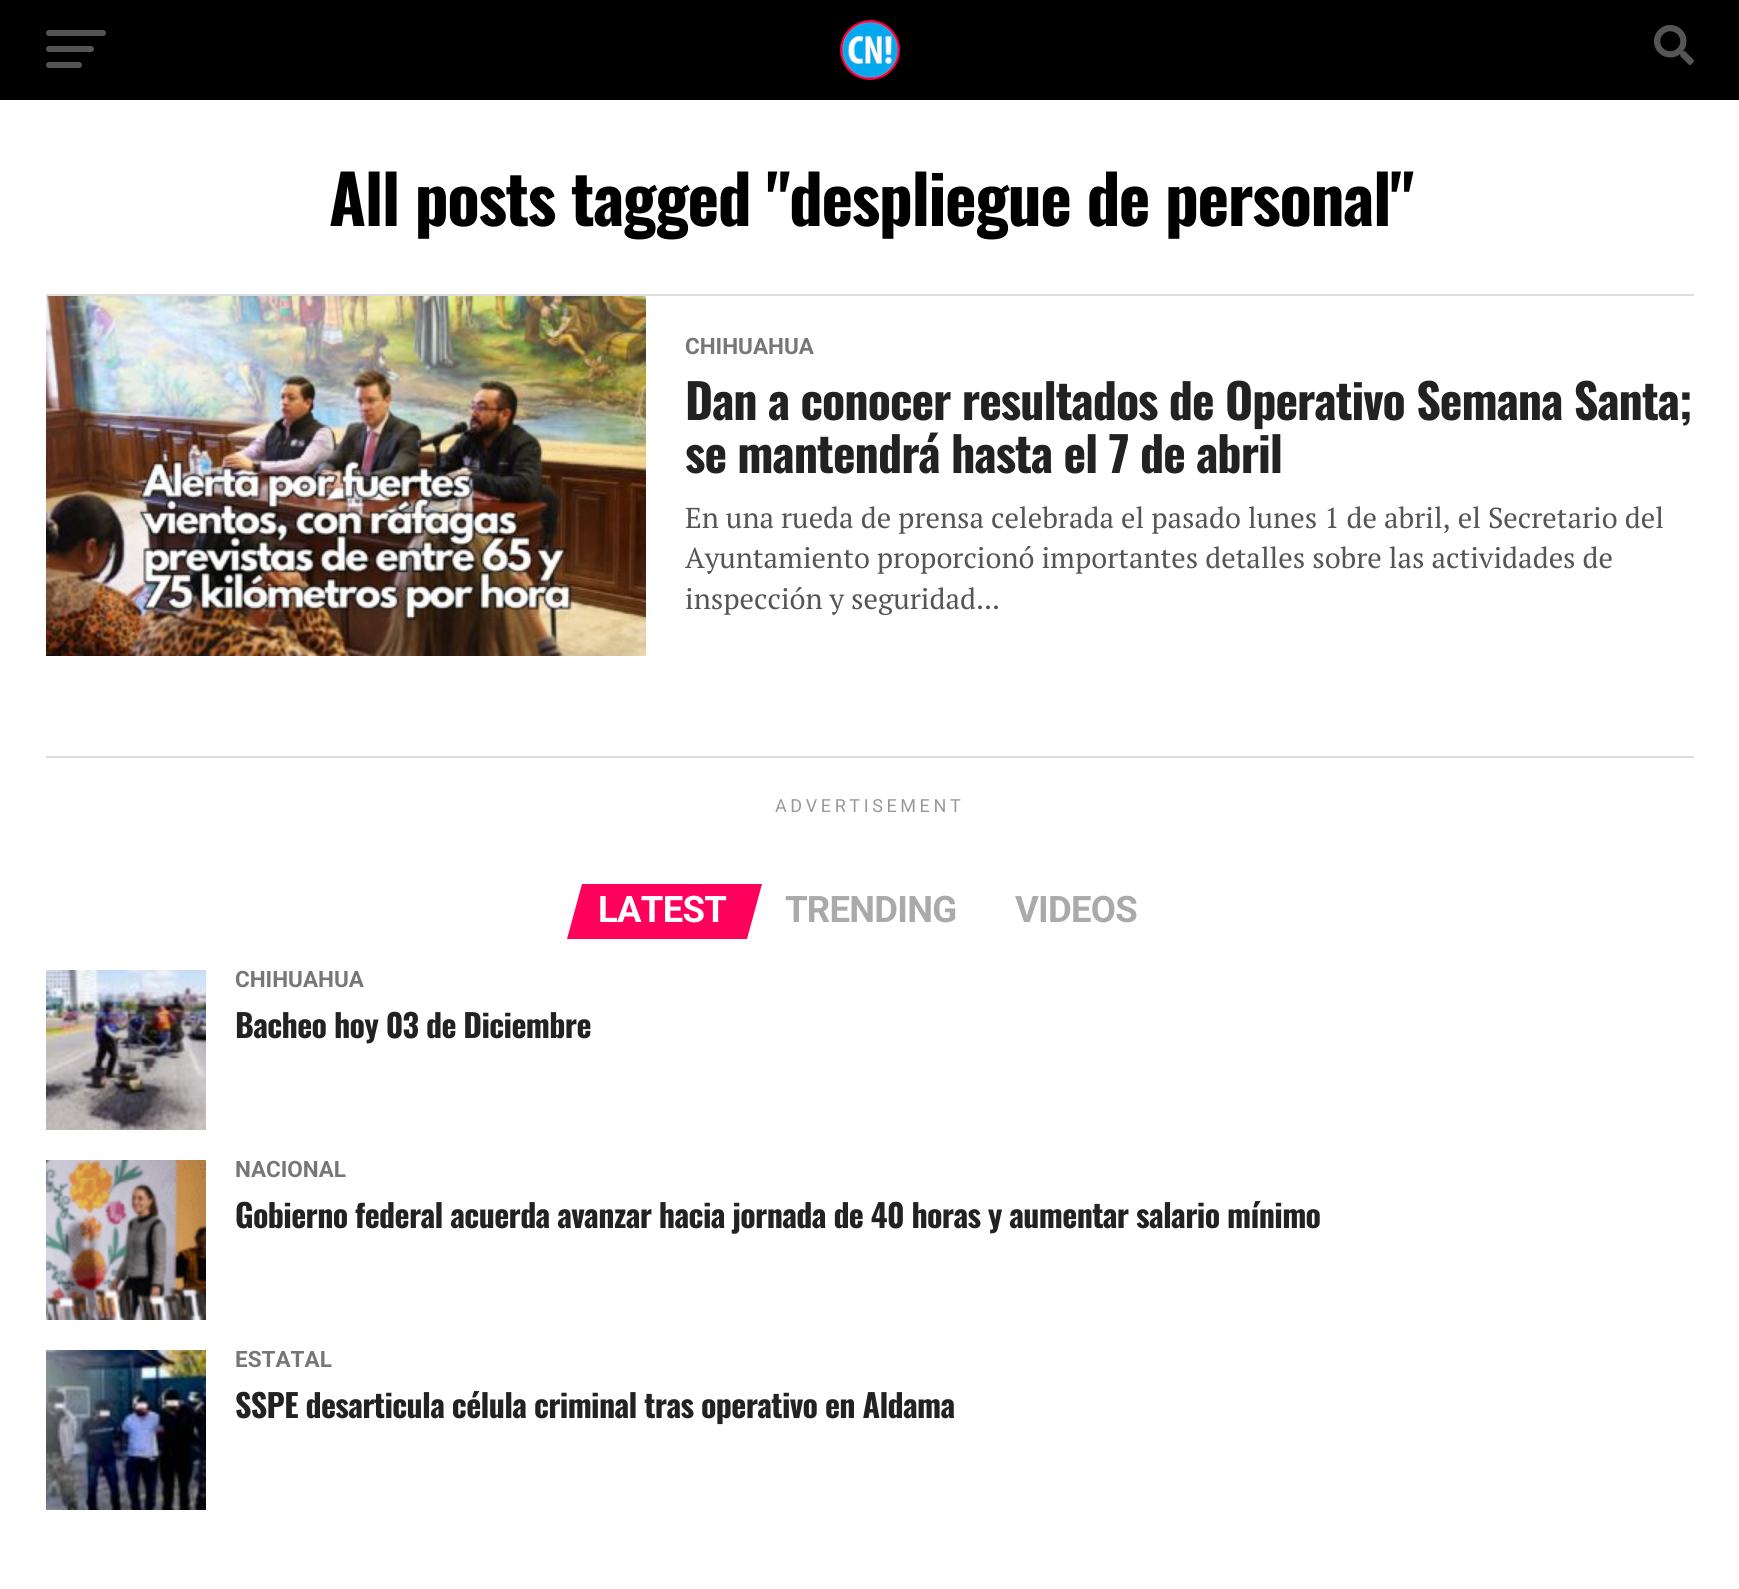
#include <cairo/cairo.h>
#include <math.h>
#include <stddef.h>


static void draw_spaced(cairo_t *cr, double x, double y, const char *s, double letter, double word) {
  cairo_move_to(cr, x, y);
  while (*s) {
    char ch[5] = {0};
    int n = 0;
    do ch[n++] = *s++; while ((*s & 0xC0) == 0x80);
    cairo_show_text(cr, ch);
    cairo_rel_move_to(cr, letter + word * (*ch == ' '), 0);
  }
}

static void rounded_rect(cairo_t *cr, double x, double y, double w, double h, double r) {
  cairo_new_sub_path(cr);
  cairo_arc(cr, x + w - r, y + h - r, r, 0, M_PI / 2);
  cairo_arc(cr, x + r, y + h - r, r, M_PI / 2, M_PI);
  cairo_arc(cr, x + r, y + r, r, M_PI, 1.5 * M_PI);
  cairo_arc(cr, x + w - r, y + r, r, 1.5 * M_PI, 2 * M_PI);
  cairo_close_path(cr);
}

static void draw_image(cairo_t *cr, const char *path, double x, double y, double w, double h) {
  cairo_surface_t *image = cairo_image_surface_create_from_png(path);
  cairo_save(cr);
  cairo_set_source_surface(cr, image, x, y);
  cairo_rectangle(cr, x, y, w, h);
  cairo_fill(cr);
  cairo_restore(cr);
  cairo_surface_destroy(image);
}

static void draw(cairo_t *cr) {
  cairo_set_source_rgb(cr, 1, 1, 1);
  cairo_paint(cr);
  cairo_set_source_rgb(cr, 0, 0, 0);
  cairo_rectangle(cr, 0, 0, 1739, 100);
  cairo_fill(cr);
  cairo_set_source_rgb(cr, 85 / 255.0, 85 / 255.0, 85 / 255.0);
  rounded_rect(cr, 46, 30, 60, 6, 3);
  cairo_fill(cr);
  rounded_rect(cr, 46, 46, 48, 6, 3);
  cairo_fill(cr);
  rounded_rect(cr, 46, 62, 36, 6, 3);
  cairo_fill(cr);
  draw_image(cr, "images/1.png", 840, 20, 60, 60);
  draw_image(cr, "images/2.png", 1654, 25, 40, 40);
  cairo_set_source_rgb(cr, 221 / 255.0, 221 / 255.0, 221 / 255.0);
  cairo_rectangle(cr, 46, 294, 1648, 2);
  cairo_fill(cr);
  draw_image(cr, "images/3.png", 46, 296, 600, 360);
  cairo_rectangle(cr, 46, 756, 1648, 2);
  cairo_fill(cr);
  cairo_set_source_rgb(cr, 1, 0, 91 / 255.0);
  cairo_new_path(cr);
  cairo_move_to(cr, 582, 884);
  cairo_line_to(cr, 762, 884);
  cairo_line_to(cr, 747, 939);
  cairo_line_to(cr, 567, 939);
  cairo_close_path(cr);
  cairo_fill(cr);
  draw_image(cr, "images/4.png", 46, 970, 160, 160);
  draw_image(cr, "images/5.png", 46, 1160, 160, 160);
  draw_image(cr, "images/6.png", 46, 1350, 160, 160);
  cairo_select_font_face(cr, "Oswald", CAIRO_FONT_SLANT_NORMAL, CAIRO_FONT_WEIGHT_BOLD);
  cairo_set_font_size(cr, 67.25);
  cairo_set_source_rgb(cr, 0, 0, 0);
  draw_spaced(cr, 329, 226, "All posts tagged \"despliegue de personal\"", -1.35, 0);
  cairo_select_font_face(cr, "Roboto", CAIRO_FONT_SLANT_NORMAL, CAIRO_FONT_WEIGHT_BOLD);
  cairo_set_font_size(cr, 22.5);
  cairo_set_source_rgb(cr, 119 / 255.0, 119 / 255.0, 119 / 255.0);
  cairo_move_to(cr, 685, 354);
  cairo_show_text(cr, "CHIHUAHUA");
  cairo_select_font_face(cr, "Oswald", CAIRO_FONT_SLANT_NORMAL, CAIRO_FONT_WEIGHT_BOLD);
  cairo_set_font_size(cr, 48);
  cairo_set_source_rgb(cr, 34 / 255.0, 34 / 255.0, 34 / 255.0);
  draw_spaced(cr, 685, 420, "Dan a conocer resultados de Operativo Semana Santa;", -0.95, 0);
  draw_spaced(cr, 685, 473, "se mantendrá hasta el 7 de abril", -0.95, 0);
  cairo_select_font_face(cr, "PT Serif", CAIRO_FONT_SLANT_NORMAL, CAIRO_FONT_WEIGHT_NORMAL);
  cairo_set_font_size(cr, 28.8);
  cairo_set_source_rgb(cr, 85 / 255.0, 85 / 255.0, 85 / 255.0);
  cairo_move_to(cr, 685, 528);
  cairo_show_text(cr, "En una rueda de prensa celebrada el pasado lunes 1 de abril, el Secretario del");
  cairo_move_to(cr, 685, 568);
  cairo_show_text(cr, "Ayuntamiento proporcionó importantes detalles sobre las actividades de");
  cairo_move_to(cr, 685, 609);
  cairo_show_text(cr, "inspección y seguridad...");
  cairo_select_font_face(cr, "Roboto", CAIRO_FONT_SLANT_NORMAL, CAIRO_FONT_WEIGHT_NORMAL);
  cairo_set_font_size(cr, 18);
  cairo_set_source_rgb(cr, 153 / 255.0, 153 / 255.0, 153 / 255.0);
  draw_spaced(cr, 775, 812, "ADVERTISEMENT", 3.6, 0);
  cairo_select_font_face(cr, "Roboto", CAIRO_FONT_SLANT_NORMAL, CAIRO_FONT_WEIGHT_BOLD);
  cairo_set_font_size(cr, 36.5);
  cairo_set_source_rgb(cr, 1, 1, 1);
  draw_spaced(cr, 598, 922, "LATEST", -0.75, 0);
  cairo_set_source_rgb(cr, 170 / 255.0, 170 / 255.0, 170 / 255.0);
  draw_spaced(cr, 785, 922, "TRENDING", -0.75, 0);
  draw_spaced(cr, 1015, 922, "VIDEOS", -0.75, 0);
  cairo_set_font_size(cr, 22.5);
  cairo_set_source_rgb(cr, 119 / 255.0, 119 / 255.0, 119 / 255.0);
  cairo_move_to(cr, 235, 987);
  cairo_show_text(cr, "CHIHUAHUA");
  cairo_select_font_face(cr, "Oswald", CAIRO_FONT_SLANT_NORMAL, CAIRO_FONT_WEIGHT_BOLD);
  cairo_set_font_size(cr, 32);
  cairo_set_source_rgb(cr, 34 / 255.0, 34 / 255.0, 34 / 255.0);
  draw_spaced(cr, 235, 1038, "Bacheo hoy 03 de Diciembre", -0.65, 0);
  cairo_select_font_face(cr, "Roboto", CAIRO_FONT_SLANT_NORMAL, CAIRO_FONT_WEIGHT_BOLD);
  cairo_set_font_size(cr, 22.5);
  cairo_set_source_rgb(cr, 119 / 255.0, 119 / 255.0, 119 / 255.0);
  cairo_move_to(cr, 235, 1177);
  cairo_show_text(cr, "NACIONAL");
  cairo_select_font_face(cr, "Oswald", CAIRO_FONT_SLANT_NORMAL, CAIRO_FONT_WEIGHT_BOLD);
  cairo_set_font_size(cr, 32);
  cairo_set_source_rgb(cr, 34 / 255.0, 34 / 255.0, 34 / 255.0);
  draw_spaced(cr, 235, 1228, "Gobierno federal acuerda avanzar hacia jornada de 40 horas y aumentar salario mínimo", -0.65, 0);
  cairo_select_font_face(cr, "Roboto", CAIRO_FONT_SLANT_NORMAL, CAIRO_FONT_WEIGHT_BOLD);
  cairo_set_font_size(cr, 22.5);
  cairo_set_source_rgb(cr, 119 / 255.0, 119 / 255.0, 119 / 255.0);
  cairo_move_to(cr, 235, 1367);
  cairo_show_text(cr, "ESTATAL");
  cairo_select_font_face(cr, "Oswald", CAIRO_FONT_SLANT_NORMAL, CAIRO_FONT_WEIGHT_BOLD);
  cairo_set_font_size(cr, 32);
  cairo_set_source_rgb(cr, 34 / 255.0, 34 / 255.0, 34 / 255.0);
  draw_spaced(cr, 235, 1418, "SSPE desarticula célula criminal tras operativo en Aldama", -0.65, 0);
}

int main(void) {
  cairo_surface_t *surface = cairo_image_surface_create(CAIRO_FORMAT_RGB24, 1739, 1589);
  cairo_t *cr = cairo_create(surface);
  cairo_font_options_t *options = cairo_font_options_create();
  cairo_font_options_set_hint_metrics(options, CAIRO_HINT_METRICS_OFF);
  cairo_font_options_set_hint_style(options, CAIRO_HINT_STYLE_NONE);
  cairo_set_font_options(cr, options);
  cairo_set_miter_limit(cr, 4);
  draw(cr);
  cairo_surface_write_to_png(surface, "out.png");
  cairo_font_options_destroy(options);
  cairo_destroy(cr);
  cairo_surface_destroy(surface);
  return 0;
}
